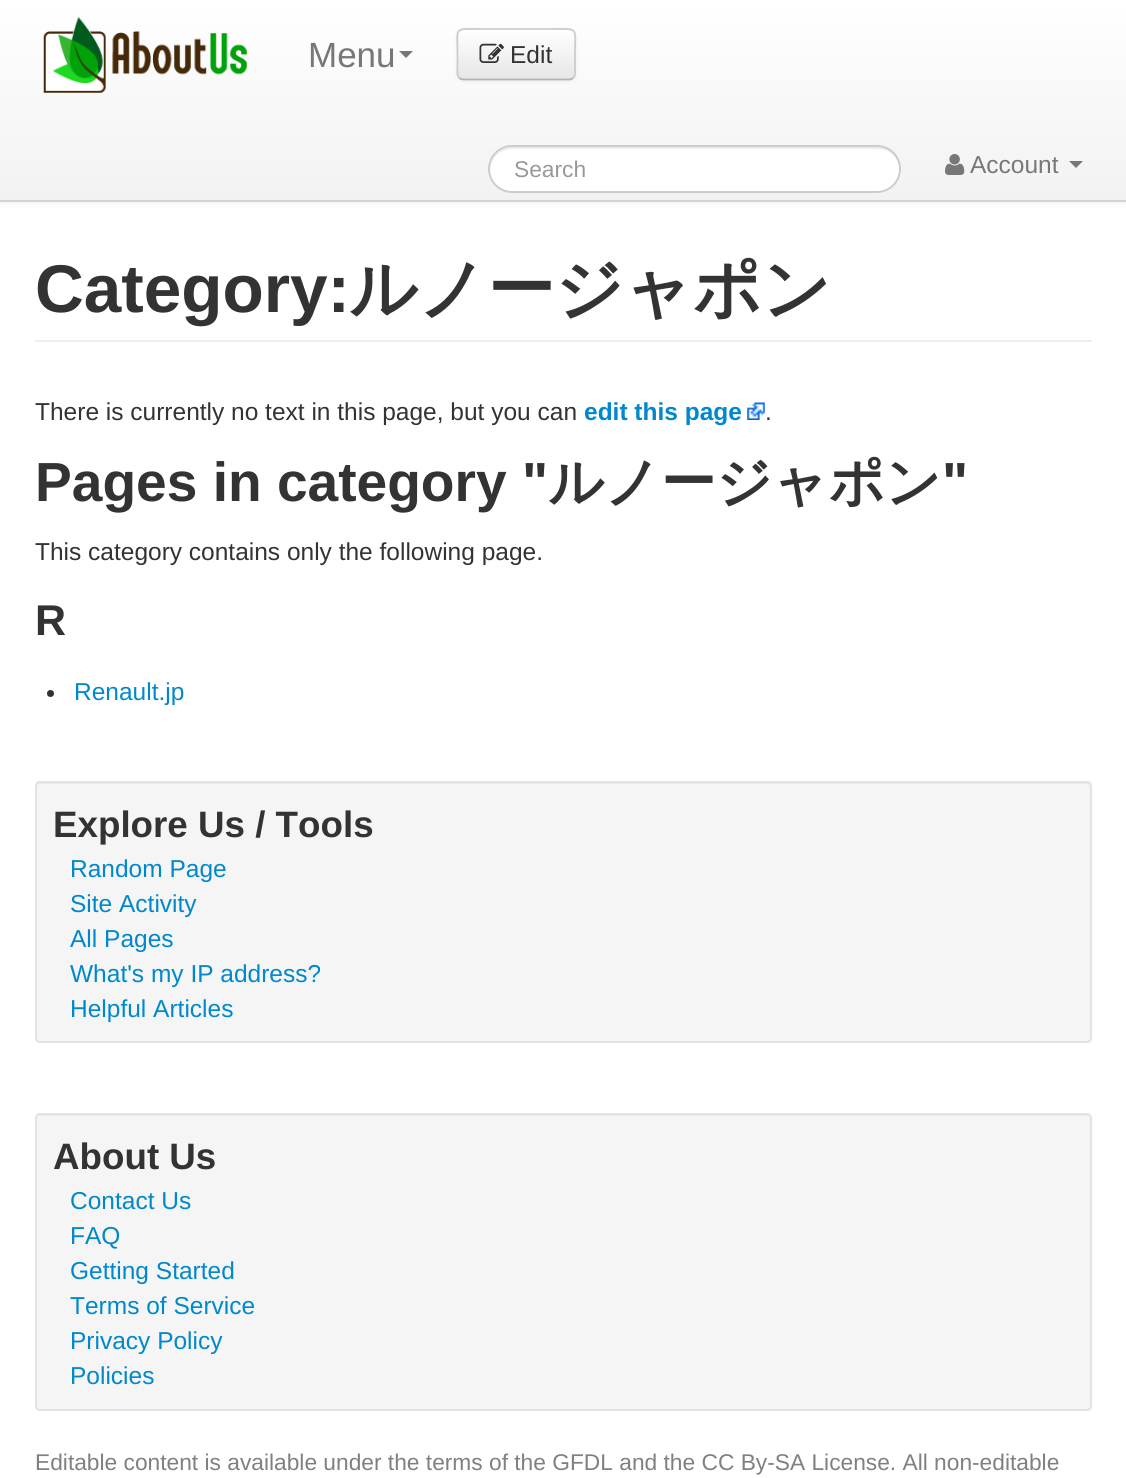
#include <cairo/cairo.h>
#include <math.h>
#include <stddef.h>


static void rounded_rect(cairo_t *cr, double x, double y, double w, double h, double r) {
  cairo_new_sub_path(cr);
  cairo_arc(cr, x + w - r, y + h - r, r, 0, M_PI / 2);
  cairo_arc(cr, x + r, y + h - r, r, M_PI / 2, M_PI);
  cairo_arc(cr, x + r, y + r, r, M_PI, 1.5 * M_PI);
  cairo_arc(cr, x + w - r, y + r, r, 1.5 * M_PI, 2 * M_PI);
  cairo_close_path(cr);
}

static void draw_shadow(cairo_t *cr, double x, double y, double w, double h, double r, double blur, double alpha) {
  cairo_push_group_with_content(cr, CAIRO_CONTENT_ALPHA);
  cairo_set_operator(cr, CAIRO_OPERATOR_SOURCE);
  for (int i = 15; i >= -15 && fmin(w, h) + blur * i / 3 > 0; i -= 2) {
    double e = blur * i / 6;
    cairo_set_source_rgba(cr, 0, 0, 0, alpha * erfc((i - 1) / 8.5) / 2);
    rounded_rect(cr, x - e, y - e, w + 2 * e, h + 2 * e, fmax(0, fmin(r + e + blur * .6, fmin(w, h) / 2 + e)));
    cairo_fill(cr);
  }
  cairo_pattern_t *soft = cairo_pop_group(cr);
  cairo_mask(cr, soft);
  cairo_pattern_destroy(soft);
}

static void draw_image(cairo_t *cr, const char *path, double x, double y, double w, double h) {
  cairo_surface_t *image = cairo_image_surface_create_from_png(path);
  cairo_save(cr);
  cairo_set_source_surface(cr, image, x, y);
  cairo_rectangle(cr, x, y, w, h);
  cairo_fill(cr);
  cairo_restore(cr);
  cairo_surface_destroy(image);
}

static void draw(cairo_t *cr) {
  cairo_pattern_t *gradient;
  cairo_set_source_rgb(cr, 1, 1, 1);
  cairo_paint(cr);
  cairo_set_source_rgb(cr, 0, 0, 0);
  draw_shadow(cr, 0, 2, 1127, 201, 0, 3.5, 0.07);
  gradient = cairo_pattern_create_linear(564, 0, 564, 200);
  cairo_pattern_add_color_stop_rgba(gradient, 0, 1, 1, 1, 1);
  cairo_pattern_add_color_stop_rgba(gradient, 1, 242 / 255.0, 242 / 255.0, 242 / 255.0, 1);
  cairo_set_source(cr, gradient);
  cairo_pattern_destroy(gradient);
  cairo_rectangle(cr, 0, 0, 1126, 200);
  cairo_fill(cr);
  cairo_set_source_rgb(cr, 212 / 255.0, 212 / 255.0, 212 / 255.0);
  cairo_rectangle(cr, 0, 200, 1126, 2);
  cairo_fill(cr);
  draw_image(cr, "images/1.png", 43, 17, 204, 76);
  cairo_set_source_rgb(cr, 119 / 255.0, 119 / 255.0, 119 / 255.0);
  cairo_new_path(cr);
  cairo_move_to(cr, 399, 51);
  cairo_line_to(cr, 413, 51);
  cairo_line_to(cr, 406, 58);
  cairo_close_path(cr);
  cairo_fill(cr);
  cairo_set_source_rgb(cr, 0, 0, 0);
  draw_shadow(cr, 457, 30, 119, 52, 7, 2, 0.05);
  cairo_set_source_rgb(cr, 245 / 255.0, 245 / 255.0, 245 / 255.0);
  rounded_rect(cr, 457, 28, 119, 53, 7);
  cairo_fill(cr);
  cairo_save(cr);
  rounded_rect(cr, 457, 28, 119, 53, 7);
  cairo_clip(cr);
  gradient = cairo_pattern_create_linear(516, 30, 516, 79);
  cairo_pattern_add_color_stop_rgba(gradient, 0, 1, 1, 1, 1);
  cairo_pattern_add_color_stop_rgba(gradient, 1, 230 / 255.0, 230 / 255.0, 230 / 255.0, 1);
  cairo_set_source(cr, gradient);
  cairo_pattern_destroy(gradient);
  cairo_rectangle(cr, 457, 30, 119, 49);
  cairo_fill(cr);
  cairo_restore(cr);
  cairo_new_path(cr);
  cairo_move_to(cr, 573, 78);
  cairo_curve_to(cr, 572, 79, 570.5, 79.5, 569, 79.5);
  cairo_line_to(cr, 464, 79.5);
  cairo_curve_to(cr, 462, 79.5, 460.5, 79, 459.5, 78);
  cairo_set_source_rgb(cr, 179 / 255.0, 179 / 255.0, 179 / 255.0);
  cairo_set_line_width(cr, 1.8);
  cairo_stroke(cr);
  cairo_new_path(cr);
  cairo_move_to(cr, 459.5, 78);
  cairo_curve_to(cr, 456.5, 75, 457.5, 70.5, 457.5, 67);
  cairo_line_to(cr, 457.5, 54);
  cairo_curve_to(cr, 457.5, 26.5, 453, 29, 481, 29);
  cairo_line_to(cr, 551, 29);
  cairo_curve_to(cr, 579.5, 29, 575, 26.5, 575, 54);
  cairo_line_to(cr, 575, 67);
  cairo_curve_to(cr, 575, 70.5, 576, 75, 573, 78);
  cairo_set_source_rgb(cr, 204 / 255.0, 204 / 255.0, 204 / 255.0);
  cairo_stroke(cr);
  draw_image(cr, "images/2.png", 479, 43, 25, 20);
  cairo_set_source_rgb(cr, 1, 1, 1);
  rounded_rect(cr, 488, 145, 413, 48, 24);
  cairo_fill(cr);
  cairo_set_source_rgb(cr, 236 / 255.0, 236 / 255.0, 236 / 255.0);
  cairo_new_path(cr);
  cairo_move_to(cr, 512, 149);
  cairo_line_to(cr, 878, 149);
  cairo_curve_to(cr, 890, 149, 899, 158, 900, 170);
  cairo_curve_to(cr, 901, 158, 890, 147, 878, 147);
  cairo_line_to(cr, 512, 147);
  cairo_curve_to(cr, 500, 147, 489, 158, 490, 170);
  cairo_curve_to(cr, 491, 158, 500, 149, 512, 149);
  cairo_close_path(cr);
  cairo_fill(cr);
  rounded_rect(cr, 489, 146, 411, 46, 23);
  cairo_set_source_rgb(cr, 204 / 255.0, 204 / 255.0, 204 / 255.0);
  cairo_set_line_width(cr, 2);
  cairo_stroke(cr);
  draw_image(cr, "images/3.png", 945, 154, 20, 21);
  cairo_set_source_rgb(cr, 119 / 255.0, 119 / 255.0, 119 / 255.0);
  cairo_new_path(cr);
  cairo_move_to(cr, 1069, 161);
  cairo_line_to(cr, 1083, 161);
  cairo_line_to(cr, 1076, 168);
  cairo_close_path(cr);
  cairo_fill(cr);
  cairo_set_source_rgb(cr, 238 / 255.0, 238 / 255.0, 238 / 255.0);
  cairo_rectangle(cr, 35, 340, 1057, 2);
  cairo_fill(cr);
  draw_image(cr, "images/4.png", 747, 402, 18, 18);
  cairo_set_source_rgb(cr, 51 / 255.0, 51 / 255.0, 51 / 255.0);
  cairo_arc(cr, 50.5, 693.5, 3.5, 0, 2 * M_PI);
  cairo_fill(cr);
  cairo_set_source_rgb(cr, 245 / 255.0, 245 / 255.0, 245 / 255.0);
  rounded_rect(cr, 35, 781, 1057, 262, 5);
  cairo_fill(cr);
  cairo_set_source_rgb(cr, 233 / 255.0, 233 / 255.0, 233 / 255.0);
  cairo_new_path(cr);
  cairo_move_to(cr, 40, 784);
  cairo_line_to(cr, 1087, 784);
  cairo_curve_to(cr, 1089, 784, 1090, 786, 1090, 788);
  cairo_line_to(cr, 1090, 786);
  cairo_curve_to(cr, 1090, 784, 1088, 782, 1086, 782);
  cairo_line_to(cr, 41, 782);
  cairo_curve_to(cr, 39, 782, 37, 784, 37, 786);
  cairo_line_to(cr, 37, 788);
  cairo_curve_to(cr, 37, 786, 38, 784, 40, 784);
  cairo_close_path(cr);
  cairo_fill(cr);
  rounded_rect(cr, 36, 782, 1055, 260, 4);
  cairo_set_source_rgb(cr, 227 / 255.0, 227 / 255.0, 227 / 255.0);
  cairo_stroke(cr);
  cairo_set_source_rgb(cr, 245 / 255.0, 245 / 255.0, 245 / 255.0);
  rounded_rect(cr, 35, 1113, 1057, 298, 5);
  cairo_fill(cr);
  cairo_set_source_rgb(cr, 233 / 255.0, 233 / 255.0, 233 / 255.0);
  cairo_new_path(cr);
  cairo_move_to(cr, 40, 1116);
  cairo_line_to(cr, 1087, 1116);
  cairo_curve_to(cr, 1089, 1116, 1090, 1118, 1090, 1120);
  cairo_curve_to(cr, 1090, 1117, 1089, 1115, 1086, 1115);
  cairo_line_to(cr, 41, 1115);
  cairo_curve_to(cr, 38, 1115, 37, 1117, 37, 1120);
  cairo_curve_to(cr, 37, 1118, 38, 1116, 40, 1116);
  cairo_close_path(cr);
  cairo_fill(cr);
  rounded_rect(cr, 36, 1114, 1055, 296, 4);
  cairo_set_source_rgb(cr, 227 / 255.0, 227 / 255.0, 227 / 255.0);
  cairo_stroke(cr);
  cairo_select_font_face(cr, "Liberation Sans", CAIRO_FONT_SLANT_NORMAL, CAIRO_FONT_WEIGHT_NORMAL);
  cairo_set_font_size(cr, 35);
  cairo_set_source_rgb(cr, 119 / 255.0, 119 / 255.0, 119 / 255.0);
  cairo_move_to(cr, 308, 67);
  cairo_show_text(cr, "Menu");
  cairo_set_font_size(cr, 24.5);
  cairo_set_source_rgb(cr, 51 / 255.0, 51 / 255.0, 51 / 255.0);
  cairo_move_to(cr, 510, 63);
  cairo_show_text(cr, "Edit");
  cairo_set_font_size(cr, 22.75);
  cairo_set_source_rgb(cr, 153 / 255.0, 153 / 255.0, 153 / 255.0);
  cairo_move_to(cr, 514, 177);
  cairo_show_text(cr, "Search");
  cairo_set_font_size(cr, 24.5);
  cairo_set_source_rgb(cr, 119 / 255.0, 119 / 255.0, 119 / 255.0);
  cairo_move_to(cr, 970, 173);
  cairo_show_text(cr, "Account");
  cairo_select_font_face(cr, "Liberation Sans", CAIRO_FONT_SLANT_NORMAL, CAIRO_FONT_WEIGHT_BOLD);
  cairo_set_font_size(cr, 67.5);
  cairo_set_source_rgb(cr, 51 / 255.0, 51 / 255.0, 51 / 255.0);
  cairo_move_to(cr, 35, 312);
  cairo_show_text(cr, "Category:");
  cairo_select_font_face(cr, "WenQuanYi Zen Hei", CAIRO_FONT_SLANT_NORMAL, CAIRO_FONT_WEIGHT_BOLD);
  cairo_move_to(cr, 349, 312);
  cairo_show_text(cr, "ルノージャポン");
  cairo_select_font_face(cr, "Liberation Sans", CAIRO_FONT_SLANT_NORMAL, CAIRO_FONT_WEIGHT_NORMAL);
  cairo_set_font_size(cr, 24.5);
  cairo_move_to(cr, 35, 420);
  cairo_show_text(cr, "There is currently no text in this page, but you can");
  cairo_select_font_face(cr, "Liberation Sans", CAIRO_FONT_SLANT_NORMAL, CAIRO_FONT_WEIGHT_BOLD);
  cairo_set_source_rgb(cr, 0, 136 / 255.0, 204 / 255.0);
  cairo_move_to(cr, 584, 420);
  cairo_show_text(cr, "edit this page");
  cairo_select_font_face(cr, "Liberation Sans", CAIRO_FONT_SLANT_NORMAL, CAIRO_FONT_WEIGHT_NORMAL);
  cairo_set_source_rgb(cr, 51 / 255.0, 51 / 255.0, 51 / 255.0);
  cairo_move_to(cr, 765, 420);
  cairo_show_text(cr, ".");
  cairo_select_font_face(cr, "Liberation Sans", CAIRO_FONT_SLANT_NORMAL, CAIRO_FONT_WEIGHT_BOLD);
  cairo_set_font_size(cr, 55.1);
  cairo_move_to(cr, 35, 501);
  cairo_show_text(cr, "Pages in category \"");
  cairo_select_font_face(cr, "WenQuanYi Zen Hei", CAIRO_FONT_SLANT_NORMAL, CAIRO_FONT_WEIGHT_BOLD);
  cairo_move_to(cr, 548, 501);
  cairo_show_text(cr, "ルノージャポン");
  cairo_select_font_face(cr, "Liberation Sans", CAIRO_FONT_SLANT_NORMAL, CAIRO_FONT_WEIGHT_BOLD);
  cairo_move_to(cr, 942, 501);
  cairo_show_text(cr, "\"");
  cairo_select_font_face(cr, "Liberation Sans", CAIRO_FONT_SLANT_NORMAL, CAIRO_FONT_WEIGHT_NORMAL);
  cairo_set_font_size(cr, 24.5);
  cairo_move_to(cr, 35, 560);
  cairo_show_text(cr, "This category contains only the following page.");
  cairo_select_font_face(cr, "Liberation Sans", CAIRO_FONT_SLANT_NORMAL, CAIRO_FONT_WEIGHT_BOLD);
  cairo_set_font_size(cr, 43);
  cairo_move_to(cr, 35, 635);
  cairo_show_text(cr, "R");
  cairo_select_font_face(cr, "Liberation Sans", CAIRO_FONT_SLANT_NORMAL, CAIRO_FONT_WEIGHT_NORMAL);
  cairo_set_font_size(cr, 24.5);
  cairo_set_source_rgb(cr, 0, 136 / 255.0, 204 / 255.0);
  cairo_move_to(cr, 74, 700);
  cairo_show_text(cr, "Renault.jp");
  cairo_select_font_face(cr, "Liberation Sans", CAIRO_FONT_SLANT_NORMAL, CAIRO_FONT_WEIGHT_BOLD);
  cairo_set_font_size(cr, 36.75);
  cairo_set_source_rgb(cr, 51 / 255.0, 51 / 255.0, 51 / 255.0);
  cairo_move_to(cr, 53, 837);
  cairo_show_text(cr, "Explore Us / Tools");
  cairo_select_font_face(cr, "Liberation Sans", CAIRO_FONT_SLANT_NORMAL, CAIRO_FONT_WEIGHT_NORMAL);
  cairo_set_font_size(cr, 24.5);
  cairo_set_source_rgb(cr, 0, 136 / 255.0, 204 / 255.0);
  cairo_move_to(cr, 70, 877);
  cairo_show_text(cr, "Random Page");
  cairo_move_to(cr, 70, 912);
  cairo_show_text(cr, "Site Activity");
  cairo_move_to(cr, 70, 947);
  cairo_show_text(cr, "All Pages");
  cairo_move_to(cr, 70, 982);
  cairo_show_text(cr, "What's my IP address?");
  cairo_move_to(cr, 70, 1017);
  cairo_show_text(cr, "Helpful Articles");
  cairo_select_font_face(cr, "Liberation Sans", CAIRO_FONT_SLANT_NORMAL, CAIRO_FONT_WEIGHT_BOLD);
  cairo_set_font_size(cr, 36.75);
  cairo_set_source_rgb(cr, 51 / 255.0, 51 / 255.0, 51 / 255.0);
  cairo_move_to(cr, 53, 1169);
  cairo_show_text(cr, "About Us");
  cairo_select_font_face(cr, "Liberation Sans", CAIRO_FONT_SLANT_NORMAL, CAIRO_FONT_WEIGHT_NORMAL);
  cairo_set_font_size(cr, 24.5);
  cairo_set_source_rgb(cr, 0, 136 / 255.0, 204 / 255.0);
  cairo_move_to(cr, 70, 1209);
  cairo_show_text(cr, "Contact Us");
  cairo_move_to(cr, 70, 1244);
  cairo_show_text(cr, "FAQ");
  cairo_move_to(cr, 70, 1279);
  cairo_show_text(cr, "Getting Started");
  cairo_move_to(cr, 70, 1314);
  cairo_show_text(cr, "Terms of Service");
  cairo_move_to(cr, 70, 1349);
  cairo_show_text(cr, "Privacy Policy");
  cairo_move_to(cr, 70, 1384);
  cairo_show_text(cr, "Policies");
  cairo_set_font_size(cr, 22.75);
  cairo_set_source_rgb(cr, 128 / 255.0, 128 / 255.0, 128 / 255.0);
  cairo_move_to(cr, 35, 1470);
  cairo_show_text(cr, "Editable content is available under the terms of the GFDL and the CC By-SA License. All non-editable");
}

int main(void) {
  cairo_surface_t *surface = cairo_image_surface_create(CAIRO_FORMAT_RGB24, 1126, 1478);
  cairo_t *cr = cairo_create(surface);
  cairo_font_options_t *options = cairo_font_options_create();
  cairo_font_options_set_hint_metrics(options, CAIRO_HINT_METRICS_OFF);
  cairo_font_options_set_hint_style(options, CAIRO_HINT_STYLE_NONE);
  cairo_set_font_options(cr, options);
  cairo_set_miter_limit(cr, 4);
  draw(cr);
  cairo_surface_write_to_png(surface, "out.png");
  cairo_font_options_destroy(options);
  cairo_destroy(cr);
  cairo_surface_destroy(surface);
  return 0;
}
